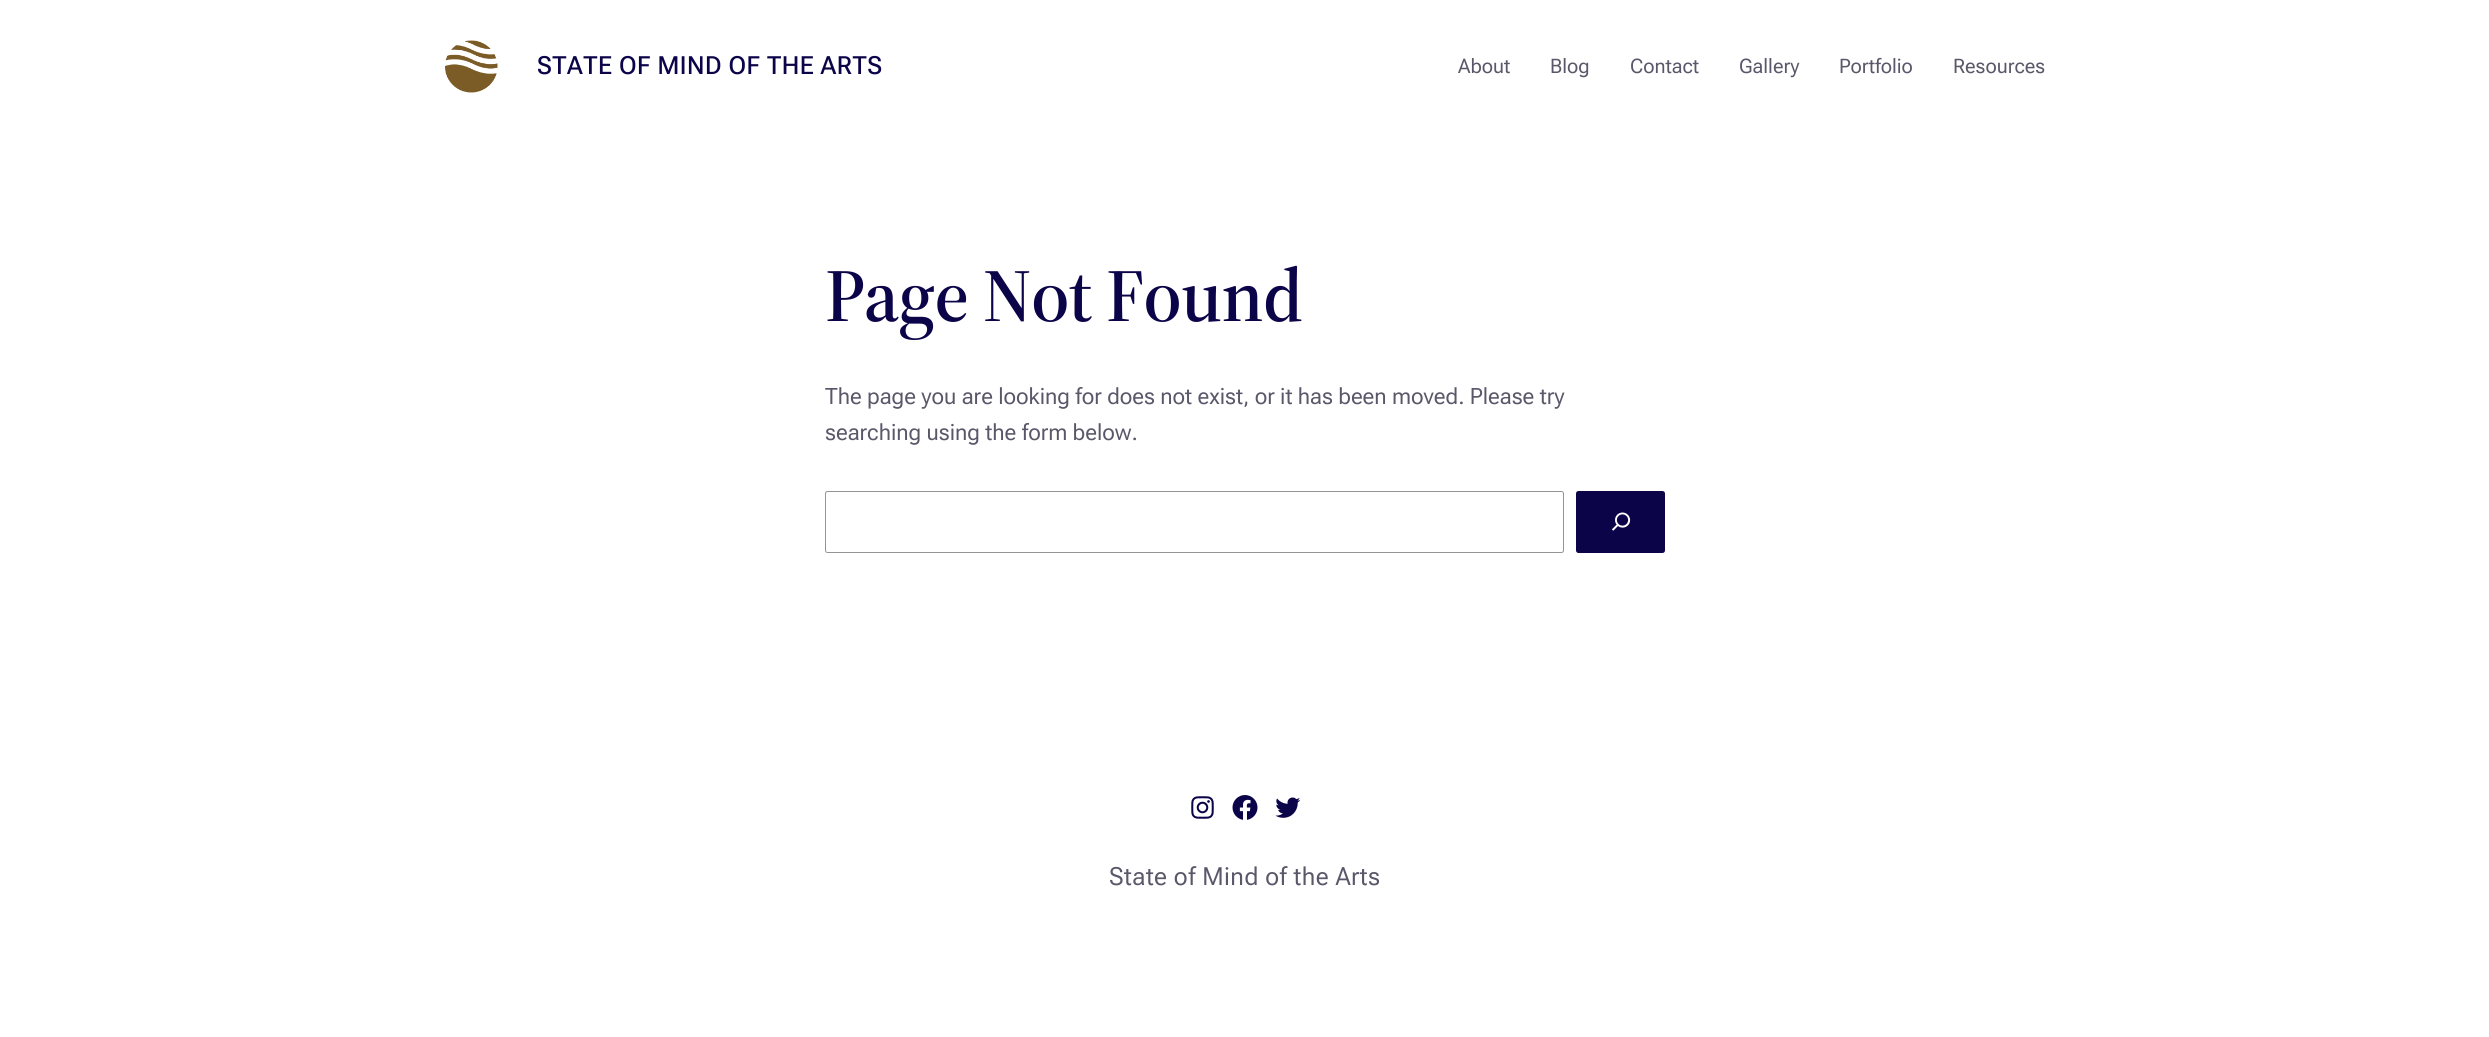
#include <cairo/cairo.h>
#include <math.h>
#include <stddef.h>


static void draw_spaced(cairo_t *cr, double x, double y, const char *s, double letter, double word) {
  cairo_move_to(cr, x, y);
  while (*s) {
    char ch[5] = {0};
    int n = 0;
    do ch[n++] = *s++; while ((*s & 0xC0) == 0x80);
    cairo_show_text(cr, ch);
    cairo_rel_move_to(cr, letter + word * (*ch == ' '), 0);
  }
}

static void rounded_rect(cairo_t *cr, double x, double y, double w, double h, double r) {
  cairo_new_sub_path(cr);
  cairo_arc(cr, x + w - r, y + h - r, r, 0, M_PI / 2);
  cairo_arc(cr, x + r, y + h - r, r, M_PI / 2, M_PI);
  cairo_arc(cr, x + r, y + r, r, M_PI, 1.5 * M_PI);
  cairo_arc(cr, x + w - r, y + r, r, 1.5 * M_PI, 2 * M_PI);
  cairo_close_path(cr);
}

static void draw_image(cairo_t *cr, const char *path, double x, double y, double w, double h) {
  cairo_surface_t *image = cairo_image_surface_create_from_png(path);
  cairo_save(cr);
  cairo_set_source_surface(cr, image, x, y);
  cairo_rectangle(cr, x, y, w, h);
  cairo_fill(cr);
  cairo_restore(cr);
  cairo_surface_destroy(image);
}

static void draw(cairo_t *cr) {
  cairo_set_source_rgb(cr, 1, 1, 1);
  cairo_paint(cr);
  draw_image(cr, "images/1.png", 445, 40, 53, 53);
  rounded_rect(cr, 825.5, 491.5, 738, 61, 2);
  cairo_set_source_rgb(cr, 148 / 255.0, 148 / 255.0, 148 / 255.0);
  cairo_set_line_width(cr, 1);
  cairo_stroke(cr);
  cairo_set_source_rgb(cr, 11 / 255.0, 4 / 255.0, 73 / 255.0);
  rounded_rect(cr, 1576, 491, 89, 62, 2.5);
  cairo_fill(cr);
  draw_image(cr, "images/2.png", 1612, 512, 19, 19);
  draw_image(cr, "images/3.png", 1191, 796, 23, 23);
  draw_image(cr, "images/4.png", 1232, 795, 26, 25);
  draw_image(cr, "images/5.png", 1275, 797, 26, 21);
  cairo_select_font_face(cr, "Roboto Flex Medium", CAIRO_FONT_SLANT_NORMAL, CAIRO_FONT_WEIGHT_NORMAL);
  cairo_set_font_size(cr, 25);
  draw_spaced(cr, 537, 74, "STATE OF MIND OF THE ARTS", 0.5, 0);
  cairo_select_font_face(cr, "Roboto Flex", CAIRO_FONT_SLANT_NORMAL, CAIRO_FONT_WEIGHT_NORMAL);
  cairo_set_font_size(cr, 20);
  cairo_set_source_rgb(cr, 89 / 255.0, 87 / 255.0, 105 / 255.0);
  cairo_move_to(cr, 1458, 73);
  cairo_show_text(cr, "About");
  cairo_move_to(cr, 1550, 73);
  cairo_show_text(cr, "Blog");
  cairo_move_to(cr, 1630, 73);
  cairo_show_text(cr, "Contact");
  cairo_move_to(cr, 1739, 73);
  cairo_show_text(cr, "Gallery");
  cairo_move_to(cr, 1839, 73);
  cairo_show_text(cr, "Portfolio");
  cairo_move_to(cr, 1953, 73);
  cairo_show_text(cr, "Resources");
  cairo_select_font_face(cr, "Source Serif 4 SemiBold", CAIRO_FONT_SLANT_NORMAL, CAIRO_FONT_WEIGHT_NORMAL);
  cairo_set_font_size(cr, 75);
  cairo_set_source_rgb(cr, 11 / 255.0, 4 / 255.0, 73 / 255.0);
  draw_spaced(cr, 825, 321, "Page Not Found", -0.75, 0);
  cairo_select_font_face(cr, "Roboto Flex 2", CAIRO_FONT_SLANT_NORMAL, CAIRO_FONT_WEIGHT_NORMAL);
  cairo_set_font_size(cr, 22.5);
  cairo_set_source_rgb(cr, 89 / 255.0, 87 / 255.0, 105 / 255.0);
  cairo_move_to(cr, 825, 404);
  cairo_show_text(cr, "The page you are looking for does not exist, or it has been moved. Please try");
  cairo_move_to(cr, 825, 440);
  cairo_show_text(cr, "searching using the form below.");
  cairo_select_font_face(cr, "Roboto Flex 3", CAIRO_FONT_SLANT_NORMAL, CAIRO_FONT_WEIGHT_NORMAL);
  cairo_set_font_size(cr, 25);
  draw_spaced(cr, 1109, 885, "State of Mind of the Arts", 0.5, 0);
}

int main(void) {
  cairo_surface_t *surface = cairo_image_surface_create(CAIRO_FORMAT_RGB24, 2489, 1037);
  cairo_t *cr = cairo_create(surface);
  cairo_font_options_t *options = cairo_font_options_create();
  cairo_font_options_set_hint_metrics(options, CAIRO_HINT_METRICS_OFF);
  cairo_font_options_set_hint_style(options, CAIRO_HINT_STYLE_NONE);
  cairo_set_font_options(cr, options);
  cairo_set_miter_limit(cr, 4);
  draw(cr);
  cairo_surface_write_to_png(surface, "out.png");
  cairo_font_options_destroy(options);
  cairo_destroy(cr);
  cairo_surface_destroy(surface);
  return 0;
}
